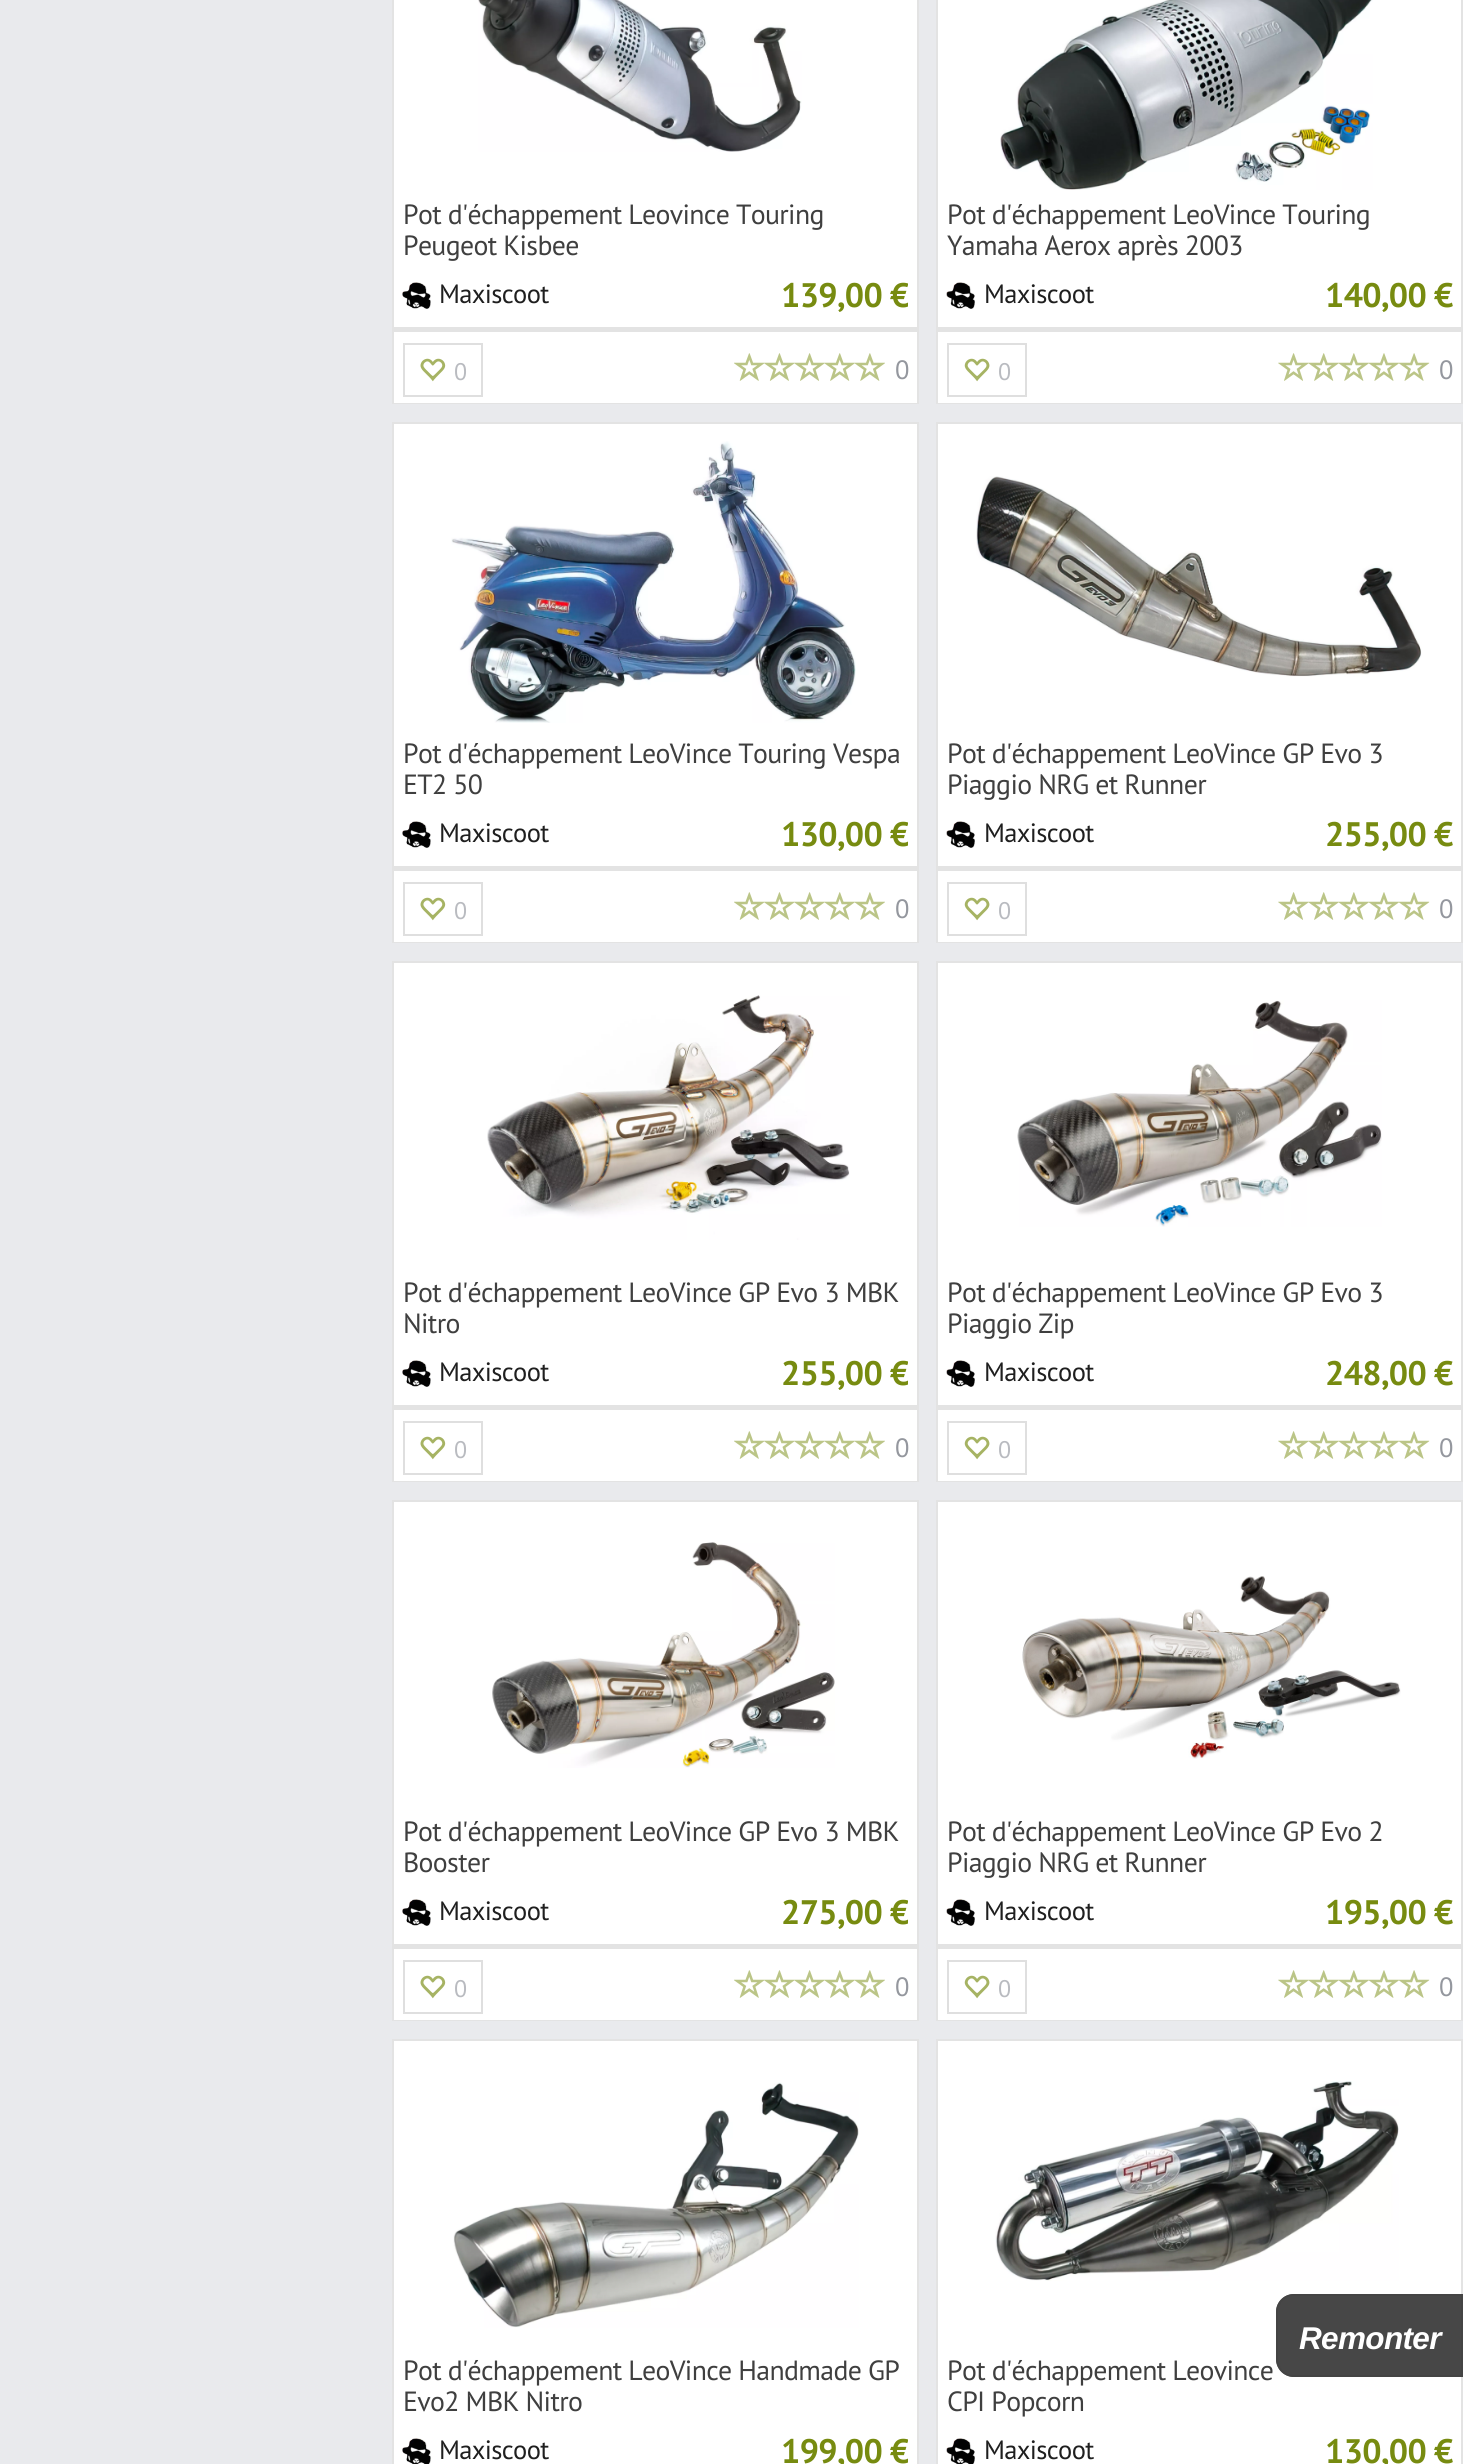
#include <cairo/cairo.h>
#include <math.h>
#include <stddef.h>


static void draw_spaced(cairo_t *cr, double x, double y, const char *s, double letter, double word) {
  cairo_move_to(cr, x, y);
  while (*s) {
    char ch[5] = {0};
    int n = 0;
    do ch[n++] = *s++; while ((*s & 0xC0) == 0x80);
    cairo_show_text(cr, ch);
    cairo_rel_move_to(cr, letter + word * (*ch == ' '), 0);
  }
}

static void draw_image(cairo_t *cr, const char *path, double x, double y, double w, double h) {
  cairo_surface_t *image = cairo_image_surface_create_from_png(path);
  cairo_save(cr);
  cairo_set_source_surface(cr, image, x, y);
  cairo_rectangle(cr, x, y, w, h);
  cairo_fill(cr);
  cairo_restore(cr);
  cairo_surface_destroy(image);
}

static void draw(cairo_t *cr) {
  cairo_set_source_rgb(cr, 233 / 255.0, 234 / 255.0, 237 / 255.0);
  cairo_paint(cr);
  cairo_set_source_rgb(cr, 1, 1, 1);
  cairo_rectangle(cr, 394, 0, 523, 200);
  cairo_fill(cr);
  cairo_rectangle(cr, 393, -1, 525, 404);
  cairo_set_source_rgb(cr, 227 / 255.0, 227 / 255.0, 227 / 255.0);
  cairo_stroke(cr);
  draw_image(cr, "images/1.png", 478, 0, 324, 152);
  cairo_set_source_rgb(cr, 1, 1, 1);
  cairo_rectangle(cr, 394, 200, 523, 203);
  cairo_fill(cr);
  draw_image(cr, "images/2.png", 402, 282, 29, 27);
  cairo_set_source_rgb(cr, 227 / 255.0, 227 / 255.0, 227 / 255.0);
  cairo_rectangle(cr, 394, 327, 523, 5);
  cairo_fill(cr);
  cairo_rectangle(cr, 404, 344, 78, 52);
  cairo_set_source_rgb(cr, 223 / 255.0, 223 / 255.0, 223 / 255.0);
  cairo_stroke(cr);
  draw_image(cr, "images/3.png", 420, 358, 26, 24);
  draw_image(cr, "images/4.png", 734, 353, 151, 28);
  cairo_set_source_rgb(cr, 1, 1, 1);
  cairo_rectangle(cr, 938, 0, 523, 200);
  cairo_fill(cr);
  cairo_rectangle(cr, 937, -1, 525, 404);
  cairo_set_source_rgb(cr, 227 / 255.0, 227 / 255.0, 227 / 255.0);
  cairo_stroke(cr);
  draw_image(cr, "images/5.png", 1000, 0, 373, 190);
  cairo_set_source_rgb(cr, 1, 1, 1);
  cairo_rectangle(cr, 938, 200, 523, 203);
  cairo_fill(cr);
  draw_image(cr, "images/6.png", 946, 282, 29, 27);
  cairo_set_source_rgb(cr, 227 / 255.0, 227 / 255.0, 227 / 255.0);
  cairo_rectangle(cr, 938, 327, 523, 5);
  cairo_fill(cr);
  cairo_rectangle(cr, 948, 344, 78, 52);
  cairo_set_source_rgb(cr, 223 / 255.0, 223 / 255.0, 223 / 255.0);
  cairo_stroke(cr);
  draw_image(cr, "images/7.png", 964, 358, 26, 24);
  draw_image(cr, "images/8.png", 1278, 353, 152, 28);
  cairo_set_source_rgb(cr, 1, 1, 1);
  cairo_rectangle(cr, 394, 424, 523, 315);
  cairo_fill(cr);
  cairo_rectangle(cr, 393, 423, 525, 519);
  cairo_set_source_rgb(cr, 227 / 255.0, 227 / 255.0, 227 / 255.0);
  cairo_stroke(cr);
  draw_image(cr, "images/9.png", 451, 441, 405, 282);
  cairo_set_source_rgb(cr, 1, 1, 1);
  cairo_rectangle(cr, 394, 739, 523, 203);
  cairo_fill(cr);
  draw_image(cr, "images/2.png", 402, 821, 29, 27);
  cairo_set_source_rgb(cr, 227 / 255.0, 227 / 255.0, 227 / 255.0);
  cairo_rectangle(cr, 394, 866, 523, 5);
  cairo_fill(cr);
  cairo_rectangle(cr, 404, 883, 78, 52);
  cairo_set_source_rgb(cr, 223 / 255.0, 223 / 255.0, 223 / 255.0);
  cairo_stroke(cr);
  draw_image(cr, "images/3.png", 420, 897, 26, 24);
  draw_image(cr, "images/4.png", 734, 892, 151, 28);
  cairo_set_source_rgb(cr, 1, 1, 1);
  cairo_rectangle(cr, 938, 424, 523, 315);
  cairo_fill(cr);
  cairo_rectangle(cr, 937, 423, 525, 519);
  cairo_set_source_rgb(cr, 227 / 255.0, 227 / 255.0, 227 / 255.0);
  cairo_stroke(cr);
  draw_image(cr, "images/10.png", 976, 476, 446, 201);
  cairo_set_source_rgb(cr, 1, 1, 1);
  cairo_rectangle(cr, 938, 739, 523, 203);
  cairo_fill(cr);
  draw_image(cr, "images/6.png", 946, 821, 29, 27);
  cairo_set_source_rgb(cr, 227 / 255.0, 227 / 255.0, 227 / 255.0);
  cairo_rectangle(cr, 938, 866, 523, 5);
  cairo_fill(cr);
  cairo_rectangle(cr, 948, 883, 78, 52);
  cairo_set_source_rgb(cr, 223 / 255.0, 223 / 255.0, 223 / 255.0);
  cairo_stroke(cr);
  draw_image(cr, "images/7.png", 964, 897, 26, 24);
  draw_image(cr, "images/8.png", 1278, 892, 152, 28);
  cairo_set_source_rgb(cr, 1, 1, 1);
  cairo_rectangle(cr, 394, 963, 523, 315);
  cairo_fill(cr);
  cairo_rectangle(cr, 393, 962, 525, 519);
  cairo_set_source_rgb(cr, 227 / 255.0, 227 / 255.0, 227 / 255.0);
  cairo_stroke(cr);
  draw_image(cr, "images/11.png", 487, 995, 363, 245);
  cairo_set_source_rgb(cr, 1, 1, 1);
  cairo_rectangle(cr, 394, 1278, 523, 203);
  cairo_fill(cr);
  draw_image(cr, "images/2.png", 402, 1360, 29, 27);
  cairo_set_source_rgb(cr, 227 / 255.0, 227 / 255.0, 227 / 255.0);
  cairo_rectangle(cr, 394, 1405, 523, 5);
  cairo_fill(cr);
  cairo_rectangle(cr, 404, 1422, 78, 52);
  cairo_set_source_rgb(cr, 223 / 255.0, 223 / 255.0, 223 / 255.0);
  cairo_stroke(cr);
  draw_image(cr, "images/3.png", 420, 1436, 26, 24);
  draw_image(cr, "images/4.png", 734, 1431, 151, 28);
  cairo_set_source_rgb(cr, 1, 1, 1);
  cairo_rectangle(cr, 938, 963, 523, 315);
  cairo_fill(cr);
  cairo_rectangle(cr, 937, 962, 525, 519);
  cairo_set_source_rgb(cr, 227 / 255.0, 227 / 255.0, 227 / 255.0);
  cairo_stroke(cr);
  draw_image(cr, "images/12.png", 1017, 1000, 365, 227);
  cairo_set_source_rgb(cr, 1, 1, 1);
  cairo_rectangle(cr, 938, 1278, 523, 203);
  cairo_fill(cr);
  draw_image(cr, "images/6.png", 946, 1360, 29, 27);
  cairo_set_source_rgb(cr, 227 / 255.0, 227 / 255.0, 227 / 255.0);
  cairo_rectangle(cr, 938, 1405, 523, 5);
  cairo_fill(cr);
  cairo_rectangle(cr, 948, 1422, 78, 52);
  cairo_set_source_rgb(cr, 223 / 255.0, 223 / 255.0, 223 / 255.0);
  cairo_stroke(cr);
  draw_image(cr, "images/7.png", 964, 1436, 26, 24);
  draw_image(cr, "images/8.png", 1278, 1431, 152, 28);
  cairo_set_source_rgb(cr, 1, 1, 1);
  cairo_rectangle(cr, 394, 1502, 523, 315);
  cairo_fill(cr);
  cairo_rectangle(cr, 393, 1501, 525, 519);
  cairo_set_source_rgb(cr, 227 / 255.0, 227 / 255.0, 227 / 255.0);
  cairo_stroke(cr);
  draw_image(cr, "images/13.png", 492, 1542, 343, 226);
  cairo_set_source_rgb(cr, 1, 1, 1);
  cairo_rectangle(cr, 394, 1817, 523, 203);
  cairo_fill(cr);
  draw_image(cr, "images/2.png", 402, 1899, 29, 27);
  cairo_set_source_rgb(cr, 227 / 255.0, 227 / 255.0, 227 / 255.0);
  cairo_rectangle(cr, 394, 1944, 523, 5);
  cairo_fill(cr);
  cairo_rectangle(cr, 404, 1961, 78, 52);
  cairo_set_source_rgb(cr, 223 / 255.0, 223 / 255.0, 223 / 255.0);
  cairo_stroke(cr);
  draw_image(cr, "images/3.png", 420, 1975, 26, 24);
  draw_image(cr, "images/4.png", 734, 1970, 151, 28);
  cairo_set_source_rgb(cr, 1, 1, 1);
  cairo_rectangle(cr, 938, 1502, 523, 315);
  cairo_fill(cr);
  cairo_rectangle(cr, 937, 1501, 525, 519);
  cairo_set_source_rgb(cr, 227 / 255.0, 227 / 255.0, 227 / 255.0);
  cairo_stroke(cr);
  draw_image(cr, "images/14.png", 1022, 1576, 379, 183);
  cairo_set_source_rgb(cr, 1, 1, 1);
  cairo_rectangle(cr, 938, 1817, 523, 203);
  cairo_fill(cr);
  draw_image(cr, "images/6.png", 946, 1899, 29, 27);
  cairo_set_source_rgb(cr, 227 / 255.0, 227 / 255.0, 227 / 255.0);
  cairo_rectangle(cr, 938, 1944, 523, 5);
  cairo_fill(cr);
  cairo_rectangle(cr, 948, 1961, 78, 52);
  cairo_set_source_rgb(cr, 223 / 255.0, 223 / 255.0, 223 / 255.0);
  cairo_stroke(cr);
  draw_image(cr, "images/7.png", 964, 1975, 26, 24);
  draw_image(cr, "images/8.png", 1278, 1970, 152, 28);
  cairo_set_source_rgb(cr, 1, 1, 1);
  cairo_rectangle(cr, 393, 2040, 525, 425);
  cairo_fill_preserve(cr);
  cairo_set_source_rgb(cr, 227 / 255.0, 227 / 255.0, 227 / 255.0);
  cairo_stroke(cr);
  draw_image(cr, "images/15.png", 453, 2082, 406, 246);
  draw_image(cr, "images/16.png", 402, 2438, 29, 26);
  cairo_set_source_rgb(cr, 1, 1, 1);
  cairo_rectangle(cr, 937, 2040, 525, 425);
  cairo_fill_preserve(cr);
  cairo_set_source_rgb(cr, 227 / 255.0, 227 / 255.0, 227 / 255.0);
  cairo_stroke(cr);
  draw_image(cr, "images/17.png", 995, 2081, 404, 200);
  draw_image(cr, "images/18.png", 946, 2438, 29, 26);
  cairo_set_source_rgba(cr, 51 / 255.0, 51 / 255.0, 51 / 255.0, 0.9);
  cairo_new_path(cr);
  cairo_move_to(cr, 1294, 2294);
  cairo_line_to(cr, 1463, 2294);
  cairo_line_to(cr, 1463, 2377);
  cairo_line_to(cr, 1294, 2377);
  cairo_curve_to(cr, 1284, 2377, 1276, 2369, 1276, 2359);
  cairo_line_to(cr, 1276, 2312);
  cairo_curve_to(cr, 1276, 2302, 1284, 2294, 1294, 2294);
  cairo_close_path(cr);
  cairo_fill(cr);
  cairo_new_path(cr);
  cairo_move_to(cr, 1294, 2295);
  cairo_line_to(cr, 1462, 2295);
  cairo_line_to(cr, 1462, 2376);
  cairo_line_to(cr, 1294, 2376);
  cairo_curve_to(cr, 1284.5, 2376, 1277, 2368.5, 1277, 2359);
  cairo_line_to(cr, 1277, 2312);
  cairo_curve_to(cr, 1277, 2302.5, 1284.5, 2295, 1294, 2295);
  cairo_close_path(cr);
  cairo_set_source_rgba(cr, 68 / 255.0, 68 / 255.0, 68 / 255.0, 0.9);
  cairo_stroke(cr);
  cairo_select_font_face(cr, "PT Sans", CAIRO_FONT_SLANT_NORMAL, CAIRO_FONT_WEIGHT_NORMAL);
  cairo_set_font_size(cr, 27.8);
  cairo_set_source_rgb(cr, 63 / 255.0, 63 / 255.0, 63 / 255.0);
  draw_spaced(cr, 403, 224, "Pot d'échappement Leovince Touring", -0.65, 0);
  draw_spaced(cr, 403, 255, "Peugeot Kisbee", -0.65, 0);
  cairo_set_font_size(cr, 26.5);
  cairo_set_source_rgb(cr, 31 / 255.0, 31 / 255.0, 31 / 255.0);
  draw_spaced(cr, 439, 303, "Maxiscoot", -0.65, 0);
  cairo_save(cr);
  cairo_rectangle(cr, 781, 263, 127, 63);
  cairo_clip(cr);
  cairo_select_font_face(cr, "PT Sans", CAIRO_FONT_SLANT_NORMAL, CAIRO_FONT_WEIGHT_BOLD);
  cairo_set_font_size(cr, 34);
  cairo_set_source_rgb(cr, 119 / 255.0, 139 / 255.0, 16 / 255.0);
  draw_spaced(cr, 781, 307, "139,00 €", -0.65, 0);
  cairo_restore(cr);
  cairo_set_font_size(cr, 24);
  cairo_set_source_rgb(cr, 185 / 255.0, 187 / 255.0, 192 / 255.0);
  cairo_move_to(cr, 454, 380);
  cairo_show_text(cr, "0");
  cairo_set_font_size(cr, 26.5);
  cairo_set_source_rgb(cr, 148 / 255.0, 151 / 255.0, 158 / 255.0);
  draw_spaced(cr, 895, 379, "0", -0.65, 0);
  cairo_set_font_size(cr, 27.8);
  cairo_set_source_rgb(cr, 63 / 255.0, 63 / 255.0, 63 / 255.0);
  draw_spaced(cr, 947, 224, "Pot d'échappement LeoVince Touring", -0.65, 0);
  draw_spaced(cr, 947, 255, "Yamaha Aerox après 2003", -0.65, 0);
  cairo_set_font_size(cr, 26.5);
  cairo_set_source_rgb(cr, 31 / 255.0, 31 / 255.0, 31 / 255.0);
  draw_spaced(cr, 984, 303, "Maxiscoot", -0.65, 0);
  cairo_select_font_face(cr, "PT Sans", CAIRO_FONT_SLANT_NORMAL, CAIRO_FONT_WEIGHT_BOLD);
  cairo_set_font_size(cr, 34);
  cairo_set_source_rgb(cr, 119 / 255.0, 139 / 255.0, 16 / 255.0);
  draw_spaced(cr, 1325, 307, "140,00 €", -0.65, 0);
  cairo_select_font_face(cr, "PT Sans", CAIRO_FONT_SLANT_NORMAL, CAIRO_FONT_WEIGHT_NORMAL);
  cairo_set_font_size(cr, 24);
  cairo_set_source_rgb(cr, 185 / 255.0, 187 / 255.0, 192 / 255.0);
  cairo_move_to(cr, 998, 380);
  cairo_show_text(cr, "0");
  cairo_set_font_size(cr, 26.5);
  cairo_set_source_rgb(cr, 148 / 255.0, 151 / 255.0, 158 / 255.0);
  draw_spaced(cr, 1439, 379, "0", -0.65, 0);
  cairo_set_font_size(cr, 27.8);
  cairo_set_source_rgb(cr, 63 / 255.0, 63 / 255.0, 63 / 255.0);
  draw_spaced(cr, 403, 763, "Pot d'échappement LeoVince Touring Vespa", -0.65, 0);
  draw_spaced(cr, 403, 794, "ET2 50", -0.65, 0);
  cairo_set_font_size(cr, 26.5);
  cairo_set_source_rgb(cr, 31 / 255.0, 31 / 255.0, 31 / 255.0);
  draw_spaced(cr, 439, 842, "Maxiscoot", -0.65, 0);
  cairo_save(cr);
  cairo_rectangle(cr, 781, 802, 127, 63);
  cairo_clip(cr);
  cairo_select_font_face(cr, "PT Sans", CAIRO_FONT_SLANT_NORMAL, CAIRO_FONT_WEIGHT_BOLD);
  cairo_set_font_size(cr, 34);
  cairo_set_source_rgb(cr, 119 / 255.0, 139 / 255.0, 16 / 255.0);
  draw_spaced(cr, 781, 846, "130,00 €", -0.65, 0);
  cairo_restore(cr);
  cairo_set_font_size(cr, 24);
  cairo_set_source_rgb(cr, 185 / 255.0, 187 / 255.0, 192 / 255.0);
  cairo_move_to(cr, 454, 919);
  cairo_show_text(cr, "0");
  cairo_set_font_size(cr, 26.5);
  cairo_set_source_rgb(cr, 148 / 255.0, 151 / 255.0, 158 / 255.0);
  draw_spaced(cr, 895, 918, "0", -0.65, 0);
  cairo_set_font_size(cr, 27.8);
  cairo_set_source_rgb(cr, 63 / 255.0, 63 / 255.0, 63 / 255.0);
  draw_spaced(cr, 947, 763, "Pot d'échappement LeoVince GP Evo 3", -0.65, 0);
  draw_spaced(cr, 947, 794, "Piaggio NRG et Runner", -0.65, 0);
  cairo_set_font_size(cr, 26.5);
  cairo_set_source_rgb(cr, 31 / 255.0, 31 / 255.0, 31 / 255.0);
  draw_spaced(cr, 984, 842, "Maxiscoot", -0.65, 0);
  cairo_select_font_face(cr, "PT Sans", CAIRO_FONT_SLANT_NORMAL, CAIRO_FONT_WEIGHT_BOLD);
  cairo_set_font_size(cr, 34);
  cairo_set_source_rgb(cr, 119 / 255.0, 139 / 255.0, 16 / 255.0);
  draw_spaced(cr, 1325, 846, "255,00 €", -0.65, 0);
  cairo_select_font_face(cr, "PT Sans", CAIRO_FONT_SLANT_NORMAL, CAIRO_FONT_WEIGHT_NORMAL);
  cairo_set_font_size(cr, 24);
  cairo_set_source_rgb(cr, 185 / 255.0, 187 / 255.0, 192 / 255.0);
  cairo_move_to(cr, 998, 919);
  cairo_show_text(cr, "0");
  cairo_set_font_size(cr, 26.5);
  cairo_set_source_rgb(cr, 148 / 255.0, 151 / 255.0, 158 / 255.0);
  draw_spaced(cr, 1439, 918, "0", -0.65, 0);
  cairo_set_font_size(cr, 27.8);
  cairo_set_source_rgb(cr, 63 / 255.0, 63 / 255.0, 63 / 255.0);
  draw_spaced(cr, 403, 1302, "Pot d'échappement LeoVince GP Evo 3 MBK", -0.65, 0);
  draw_spaced(cr, 403, 1333, "Nitro", -0.65, 0);
  cairo_set_font_size(cr, 26.5);
  cairo_set_source_rgb(cr, 31 / 255.0, 31 / 255.0, 31 / 255.0);
  draw_spaced(cr, 439, 1381, "Maxiscoot", -0.65, 0);
  cairo_save(cr);
  cairo_rectangle(cr, 781, 1341, 127, 63);
  cairo_clip(cr);
  cairo_select_font_face(cr, "PT Sans", CAIRO_FONT_SLANT_NORMAL, CAIRO_FONT_WEIGHT_BOLD);
  cairo_set_font_size(cr, 34);
  cairo_set_source_rgb(cr, 119 / 255.0, 139 / 255.0, 16 / 255.0);
  draw_spaced(cr, 781, 1385, "255,00 €", -0.65, 0);
  cairo_restore(cr);
  cairo_set_font_size(cr, 24);
  cairo_set_source_rgb(cr, 185 / 255.0, 187 / 255.0, 192 / 255.0);
  cairo_move_to(cr, 454, 1458);
  cairo_show_text(cr, "0");
  cairo_set_font_size(cr, 26.5);
  cairo_set_source_rgb(cr, 148 / 255.0, 151 / 255.0, 158 / 255.0);
  draw_spaced(cr, 895, 1457, "0", -0.65, 0);
  cairo_set_font_size(cr, 27.8);
  cairo_set_source_rgb(cr, 63 / 255.0, 63 / 255.0, 63 / 255.0);
  draw_spaced(cr, 947, 1302, "Pot d'échappement LeoVince GP Evo 3", -0.65, 0);
  draw_spaced(cr, 947, 1333, "Piaggio Zip", -0.65, 0);
  cairo_set_font_size(cr, 26.5);
  cairo_set_source_rgb(cr, 31 / 255.0, 31 / 255.0, 31 / 255.0);
  draw_spaced(cr, 984, 1381, "Maxiscoot", -0.65, 0);
  cairo_select_font_face(cr, "PT Sans", CAIRO_FONT_SLANT_NORMAL, CAIRO_FONT_WEIGHT_BOLD);
  cairo_set_font_size(cr, 34);
  cairo_set_source_rgb(cr, 119 / 255.0, 139 / 255.0, 16 / 255.0);
  draw_spaced(cr, 1325, 1385, "248,00 €", -0.65, 0);
  cairo_select_font_face(cr, "PT Sans", CAIRO_FONT_SLANT_NORMAL, CAIRO_FONT_WEIGHT_NORMAL);
  cairo_set_font_size(cr, 24);
  cairo_set_source_rgb(cr, 185 / 255.0, 187 / 255.0, 192 / 255.0);
  cairo_move_to(cr, 998, 1458);
  cairo_show_text(cr, "0");
  cairo_set_font_size(cr, 26.5);
  cairo_set_source_rgb(cr, 148 / 255.0, 151 / 255.0, 158 / 255.0);
  draw_spaced(cr, 1439, 1457, "0", -0.65, 0);
  cairo_set_font_size(cr, 27.8);
  cairo_set_source_rgb(cr, 63 / 255.0, 63 / 255.0, 63 / 255.0);
  draw_spaced(cr, 403, 1841, "Pot d'échappement LeoVince GP Evo 3 MBK", -0.65, 0);
  draw_spaced(cr, 403, 1872, "Booster", -0.65, 0);
  cairo_set_font_size(cr, 26.5);
  cairo_set_source_rgb(cr, 31 / 255.0, 31 / 255.0, 31 / 255.0);
  draw_spaced(cr, 439, 1920, "Maxiscoot", -0.65, 0);
  cairo_save(cr);
  cairo_rectangle(cr, 781, 1880, 127, 63);
  cairo_clip(cr);
  cairo_select_font_face(cr, "PT Sans", CAIRO_FONT_SLANT_NORMAL, CAIRO_FONT_WEIGHT_BOLD);
  cairo_set_font_size(cr, 34);
  cairo_set_source_rgb(cr, 119 / 255.0, 139 / 255.0, 16 / 255.0);
  draw_spaced(cr, 781, 1924, "275,00 €", -0.65, 0);
  cairo_restore(cr);
  cairo_set_font_size(cr, 24);
  cairo_set_source_rgb(cr, 185 / 255.0, 187 / 255.0, 192 / 255.0);
  cairo_move_to(cr, 454, 1997);
  cairo_show_text(cr, "0");
  cairo_set_font_size(cr, 26.5);
  cairo_set_source_rgb(cr, 148 / 255.0, 151 / 255.0, 158 / 255.0);
  draw_spaced(cr, 895, 1996, "0", -0.65, 0);
  cairo_set_font_size(cr, 27.8);
  cairo_set_source_rgb(cr, 63 / 255.0, 63 / 255.0, 63 / 255.0);
  draw_spaced(cr, 947, 1841, "Pot d'échappement LeoVince GP Evo 2", -0.65, 0);
  draw_spaced(cr, 947, 1872, "Piaggio NRG et Runner", -0.65, 0);
  cairo_set_font_size(cr, 26.5);
  cairo_set_source_rgb(cr, 31 / 255.0, 31 / 255.0, 31 / 255.0);
  draw_spaced(cr, 984, 1920, "Maxiscoot", -0.65, 0);
  cairo_select_font_face(cr, "PT Sans", CAIRO_FONT_SLANT_NORMAL, CAIRO_FONT_WEIGHT_BOLD);
  cairo_set_font_size(cr, 34);
  cairo_set_source_rgb(cr, 119 / 255.0, 139 / 255.0, 16 / 255.0);
  draw_spaced(cr, 1325, 1924, "195,00 €", -0.65, 0);
  cairo_select_font_face(cr, "PT Sans", CAIRO_FONT_SLANT_NORMAL, CAIRO_FONT_WEIGHT_NORMAL);
  cairo_set_font_size(cr, 24);
  cairo_set_source_rgb(cr, 185 / 255.0, 187 / 255.0, 192 / 255.0);
  cairo_move_to(cr, 998, 1997);
  cairo_show_text(cr, "0");
  cairo_set_font_size(cr, 26.5);
  cairo_set_source_rgb(cr, 148 / 255.0, 151 / 255.0, 158 / 255.0);
  draw_spaced(cr, 1439, 1996, "0", -0.65, 0);
  cairo_set_font_size(cr, 27.8);
  cairo_set_source_rgb(cr, 63 / 255.0, 63 / 255.0, 63 / 255.0);
  draw_spaced(cr, 403, 2380, "Pot d'échappement LeoVince Handmade GP", -0.65, 0);
  draw_spaced(cr, 403, 2411, "Evo2 MBK Nitro", -0.65, 0);
  cairo_set_font_size(cr, 26.5);
  cairo_set_source_rgb(cr, 31 / 255.0, 31 / 255.0, 31 / 255.0);
  draw_spaced(cr, 439, 2459, "Maxiscoot", -0.65, 0);
  cairo_save(cr);
  cairo_rectangle(cr, 781, 2419, 127, 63);
  cairo_clip(cr);
  cairo_select_font_face(cr, "PT Sans", CAIRO_FONT_SLANT_NORMAL, CAIRO_FONT_WEIGHT_BOLD);
  cairo_set_font_size(cr, 34);
  cairo_set_source_rgb(cr, 119 / 255.0, 139 / 255.0, 16 / 255.0);
  draw_spaced(cr, 781, 2463, "199,00 €", -0.65, 0);
  cairo_restore(cr);
  cairo_set_font_size(cr, 27.8);
  cairo_set_source_rgb(cr, 63 / 255.0, 63 / 255.0, 63 / 255.0);
  draw_spaced(cr, 947, 2380, "Pot d'échappement Leovince", -0.65, 0);
  draw_spaced(cr, 947, 2411, "CPI Popcorn", -0.65, 0);
  cairo_set_font_size(cr, 26.5);
  cairo_set_source_rgb(cr, 31 / 255.0, 31 / 255.0, 31 / 255.0);
  draw_spaced(cr, 984, 2459, "Maxiscoot", -0.65, 0);
  cairo_select_font_face(cr, "PT Sans", CAIRO_FONT_SLANT_NORMAL, CAIRO_FONT_WEIGHT_BOLD);
  cairo_set_font_size(cr, 34);
  cairo_set_source_rgb(cr, 119 / 255.0, 139 / 255.0, 16 / 255.0);
  draw_spaced(cr, 1325, 2463, "130,00 €", -0.65, 0);
  cairo_select_font_face(cr, "Liberation Sans", CAIRO_FONT_SLANT_ITALIC, CAIRO_FONT_WEIGHT_BOLD);
  cairo_set_font_size(cr, 31.5);
  cairo_set_source_rgb(cr, 1, 1, 1);
  draw_spaced(cr, 1299, 2349, "Remonter", -0.65, 0);
}

int main(void) {
  cairo_surface_t *surface = cairo_image_surface_create(CAIRO_FORMAT_RGB24, 1463, 2464);
  cairo_t *cr = cairo_create(surface);
  cairo_font_options_t *options = cairo_font_options_create();
  cairo_font_options_set_hint_metrics(options, CAIRO_HINT_METRICS_OFF);
  cairo_font_options_set_hint_style(options, CAIRO_HINT_STYLE_NONE);
  cairo_set_font_options(cr, options);
  cairo_set_miter_limit(cr, 4);
  draw(cr);
  cairo_surface_write_to_png(surface, "out.png");
  cairo_font_options_destroy(options);
  cairo_destroy(cr);
  cairo_surface_destroy(surface);
  return 0;
}
